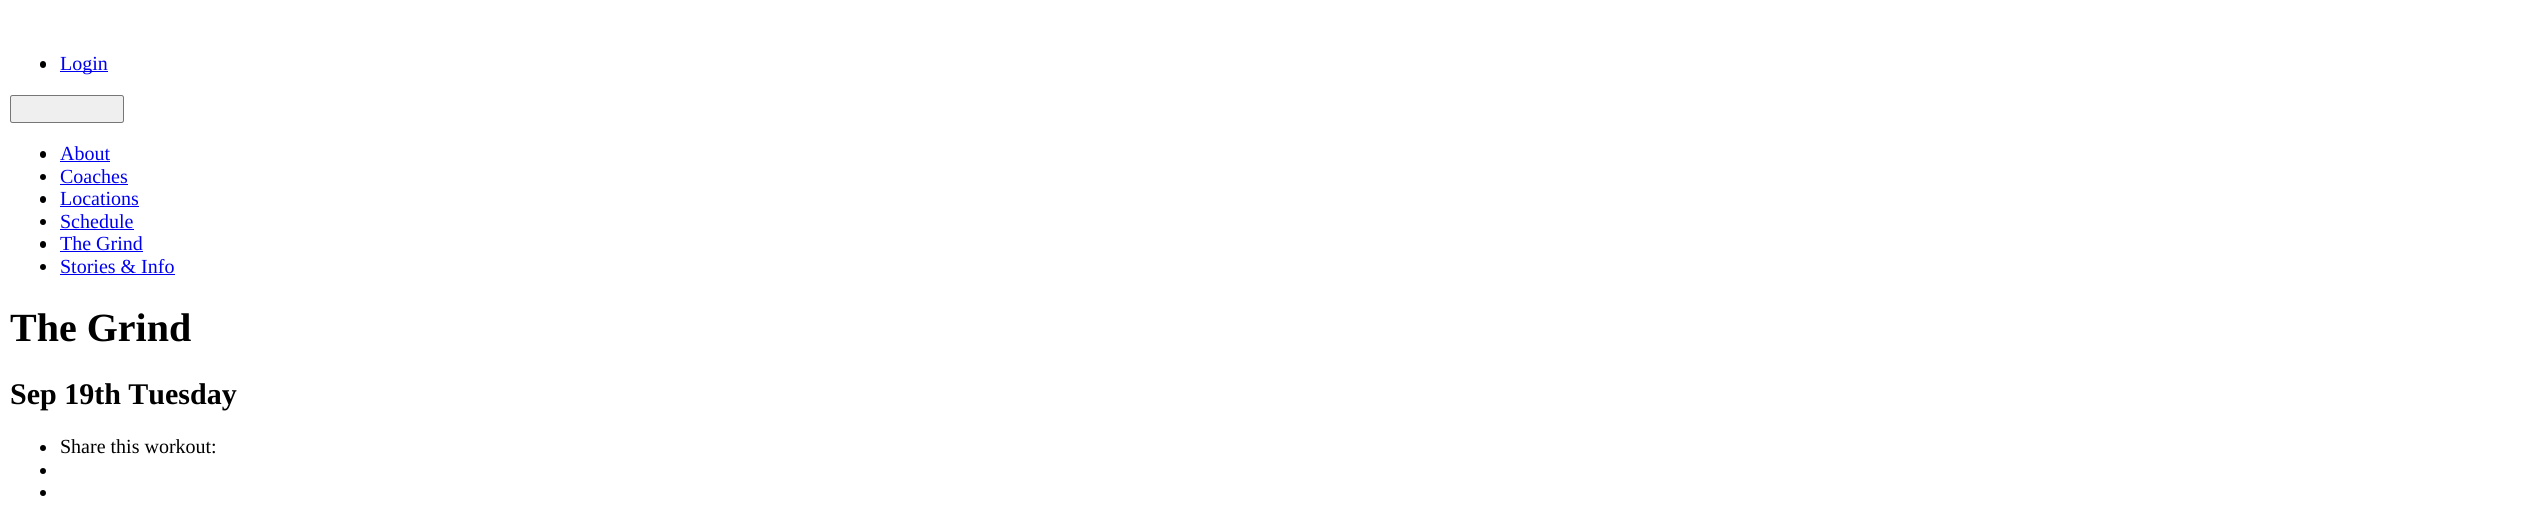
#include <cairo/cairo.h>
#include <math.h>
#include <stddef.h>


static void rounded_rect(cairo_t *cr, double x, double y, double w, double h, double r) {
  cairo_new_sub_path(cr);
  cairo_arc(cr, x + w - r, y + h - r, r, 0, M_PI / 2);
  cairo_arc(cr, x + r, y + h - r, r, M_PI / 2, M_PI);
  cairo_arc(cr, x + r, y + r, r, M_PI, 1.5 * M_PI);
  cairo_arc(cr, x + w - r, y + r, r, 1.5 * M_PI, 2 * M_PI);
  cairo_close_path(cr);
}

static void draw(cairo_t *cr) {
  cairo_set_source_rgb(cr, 1, 1, 1);
  cairo_paint(cr);
  cairo_set_source_rgb(cr, 0, 0, 0);
  rounded_rect(cr, 40, 61, 6, 7, 3);
  cairo_fill(cr);
  cairo_set_source_rgb(cr, 0, 0, 238 / 255.0);
  cairo_rectangle(cr, 60, 71, 48, 1);
  cairo_fill(cr);
  cairo_set_source_rgb(cr, 239 / 255.0, 239 / 255.0, 239 / 255.0);
  rounded_rect(cr, 10.5, 95.5, 113, 27, 2);
  cairo_fill_preserve(cr);
  cairo_set_source_rgb(cr, 118 / 255.0, 118 / 255.0, 118 / 255.0);
  cairo_set_line_width(cr, 1);
  cairo_stroke(cr);
  cairo_set_source_rgb(cr, 0, 0, 0);
  rounded_rect(cr, 40, 151, 6, 7, 3);
  cairo_fill(cr);
  cairo_set_source_rgb(cr, 0, 0, 238 / 255.0);
  cairo_rectangle(cr, 60, 161, 50, 1);
  cairo_fill(cr);
  cairo_set_source_rgb(cr, 0, 0, 0);
  cairo_arc(cr, 43, 177, 3, 0, 2 * M_PI);
  cairo_fill(cr);
  cairo_set_source_rgb(cr, 0, 0, 238 / 255.0);
  cairo_rectangle(cr, 60, 184, 68, 1);
  cairo_fill(cr);
  cairo_set_source_rgb(cr, 0, 0, 0);
  rounded_rect(cr, 40, 196, 6, 7, 3);
  cairo_fill(cr);
  cairo_set_source_rgb(cr, 0, 0, 238 / 255.0);
  cairo_rectangle(cr, 60, 206, 79, 1);
  cairo_fill(cr);
  cairo_set_source_rgb(cr, 0, 0, 0);
  cairo_arc(cr, 43, 222, 3, 0, 2 * M_PI);
  cairo_fill(cr);
  cairo_set_source_rgb(cr, 0, 0, 238 / 255.0);
  cairo_rectangle(cr, 60, 229, 74, 1);
  cairo_fill(cr);
  cairo_set_source_rgb(cr, 0, 0, 0);
  rounded_rect(cr, 40, 241, 6, 7, 3);
  cairo_fill(cr);
  cairo_set_source_rgb(cr, 0, 0, 238 / 255.0);
  cairo_rectangle(cr, 60, 251, 83, 1);
  cairo_fill(cr);
  cairo_set_source_rgb(cr, 0, 0, 0);
  cairo_arc(cr, 43, 267, 3, 0, 2 * M_PI);
  cairo_fill(cr);
  cairo_set_source_rgb(cr, 0, 0, 238 / 255.0);
  cairo_rectangle(cr, 60, 274, 115, 1);
  cairo_fill(cr);
  cairo_set_source_rgb(cr, 0, 0, 0);
  cairo_arc(cr, 43, 448, 3, 0, 2 * M_PI);
  cairo_fill(cr);
  cairo_arc(cr, 43, 471, 3, 0, 2 * M_PI);
  cairo_fill(cr);
  cairo_arc(cr, 43, 493, 3, 0, 2 * M_PI);
  cairo_fill(cr);
  cairo_select_font_face(cr, "Liberation Serif", CAIRO_FONT_SLANT_NORMAL, CAIRO_FONT_WEIGHT_NORMAL);
  cairo_set_font_size(cr, 20);
  cairo_set_source_rgb(cr, 0, 0, 238 / 255.0);
  cairo_move_to(cr, 60, 70);
  cairo_show_text(cr, "Login");
  cairo_move_to(cr, 60, 160);
  cairo_show_text(cr, "About");
  cairo_move_to(cr, 60, 183);
  cairo_show_text(cr, "Coaches");
  cairo_move_to(cr, 60, 205);
  cairo_show_text(cr, "Locations");
  cairo_move_to(cr, 60, 228);
  cairo_show_text(cr, "Schedule");
  cairo_move_to(cr, 60, 250);
  cairo_show_text(cr, "The Grind");
  cairo_move_to(cr, 60, 273);
  cairo_show_text(cr, "Stories & Info");
  cairo_select_font_face(cr, "Liberation Serif", CAIRO_FONT_SLANT_NORMAL, CAIRO_FONT_WEIGHT_BOLD);
  cairo_set_font_size(cr, 40);
  cairo_set_source_rgb(cr, 0, 0, 0);
  cairo_move_to(cr, 10, 341);
  cairo_show_text(cr, "The Grind");
  cairo_set_font_size(cr, 30);
  cairo_move_to(cr, 10, 404);
  cairo_show_text(cr, "Sep 19th Tuesday");
  cairo_select_font_face(cr, "Liberation Serif", CAIRO_FONT_SLANT_NORMAL, CAIRO_FONT_WEIGHT_NORMAL);
  cairo_set_font_size(cr, 20);
  cairo_move_to(cr, 60, 453);
  cairo_show_text(cr, "Share this workout:");
}

int main(void) {
  cairo_surface_t *surface = cairo_image_surface_create(CAIRO_FORMAT_RGB24, 2527, 530);
  cairo_t *cr = cairo_create(surface);
  cairo_font_options_t *options = cairo_font_options_create();
  cairo_font_options_set_hint_metrics(options, CAIRO_HINT_METRICS_OFF);
  cairo_font_options_set_hint_style(options, CAIRO_HINT_STYLE_NONE);
  cairo_set_font_options(cr, options);
  cairo_set_miter_limit(cr, 4);
  draw(cr);
  cairo_surface_write_to_png(surface, "out.png");
  cairo_font_options_destroy(options);
  cairo_destroy(cr);
  cairo_surface_destroy(surface);
  return 0;
}
